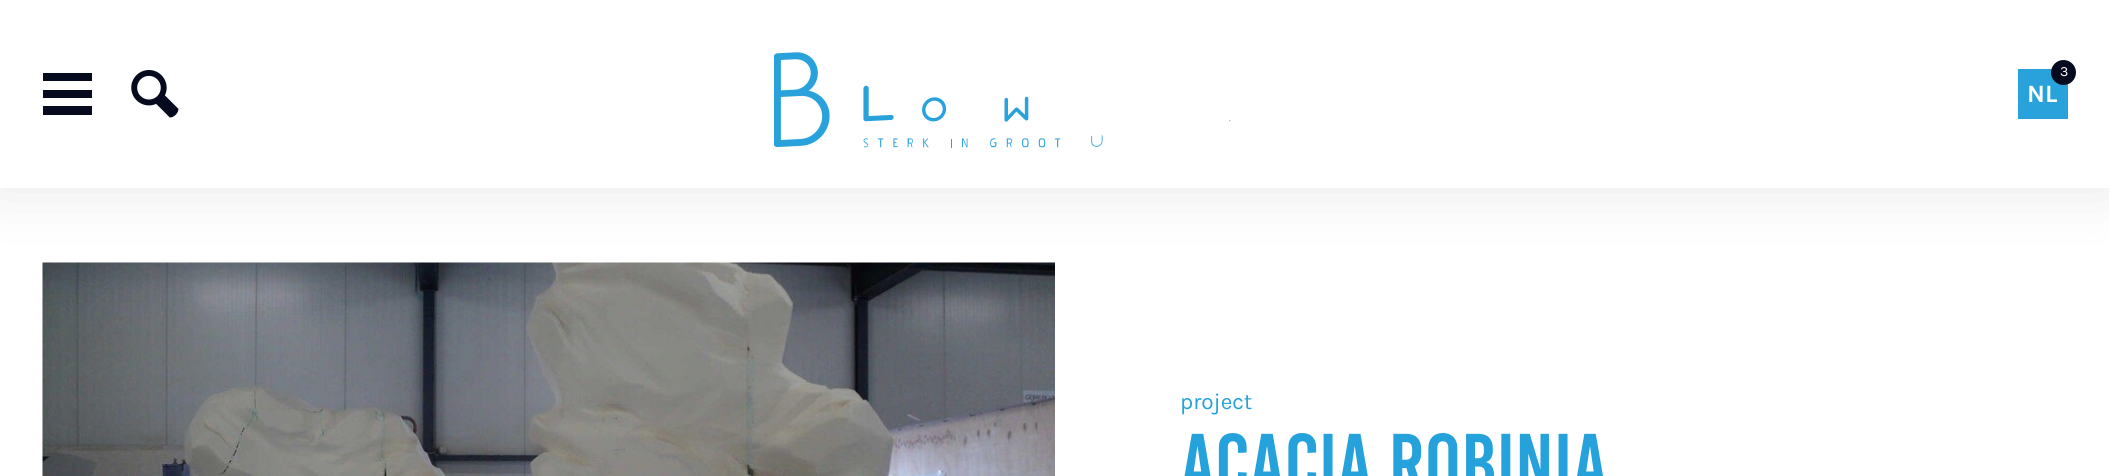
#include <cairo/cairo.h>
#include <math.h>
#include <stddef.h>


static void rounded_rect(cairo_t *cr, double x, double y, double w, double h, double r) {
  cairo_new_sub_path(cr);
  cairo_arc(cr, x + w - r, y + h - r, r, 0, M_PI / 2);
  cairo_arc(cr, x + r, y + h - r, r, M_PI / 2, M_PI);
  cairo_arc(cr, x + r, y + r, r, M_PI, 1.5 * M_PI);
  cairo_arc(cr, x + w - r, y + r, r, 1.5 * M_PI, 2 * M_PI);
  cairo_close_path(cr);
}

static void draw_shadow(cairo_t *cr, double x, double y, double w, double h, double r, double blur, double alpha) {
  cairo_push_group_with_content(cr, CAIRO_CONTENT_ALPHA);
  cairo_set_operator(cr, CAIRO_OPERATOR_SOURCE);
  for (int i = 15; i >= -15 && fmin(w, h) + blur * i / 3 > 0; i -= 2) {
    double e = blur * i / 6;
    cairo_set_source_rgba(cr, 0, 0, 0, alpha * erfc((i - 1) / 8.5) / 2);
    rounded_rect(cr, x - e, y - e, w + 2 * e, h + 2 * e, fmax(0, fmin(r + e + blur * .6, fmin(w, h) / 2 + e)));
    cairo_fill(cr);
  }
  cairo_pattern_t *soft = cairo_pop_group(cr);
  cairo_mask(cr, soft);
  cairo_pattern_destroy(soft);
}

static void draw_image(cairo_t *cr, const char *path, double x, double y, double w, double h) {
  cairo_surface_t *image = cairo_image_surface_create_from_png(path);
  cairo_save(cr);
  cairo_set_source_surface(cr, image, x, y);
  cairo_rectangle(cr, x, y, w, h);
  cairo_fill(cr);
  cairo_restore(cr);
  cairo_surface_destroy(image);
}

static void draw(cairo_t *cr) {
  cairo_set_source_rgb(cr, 1, 1, 1);
  cairo_paint(cr);
  draw_image(cr, "images/3.png", 42, 262, 1013, 214);
  cairo_set_source_rgb(cr, 0, 0, 0);
  draw_shadow(cr, 0, 0, 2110, 188, 0, 31, 0.1);
  cairo_set_source_rgb(cr, 1, 1, 1);
  cairo_rectangle(cr, 0, 0, 2109, 188);
  cairo_fill(cr);
  cairo_save(cr);
  cairo_rectangle(cr, 43, 69, 50, 50);
  cairo_clip(cr);
  cairo_set_source_rgb(cr, 5 / 255.0, 10 / 255.0, 31 / 255.0);
  cairo_new_path(cr);
  cairo_move_to(cr, 92, 81);
  cairo_line_to(cr, 42, 81);
  cairo_line_to(cr, 42, 73);
  cairo_line_to(cr, 92, 73);
  cairo_close_path(cr);
  cairo_move_to(cr, 92, 90);
  cairo_line_to(cr, 42, 90);
  cairo_line_to(cr, 42, 98);
  cairo_line_to(cr, 92, 98);
  cairo_close_path(cr);
  cairo_move_to(cr, 92, 106);
  cairo_line_to(cr, 42, 106);
  cairo_line_to(cr, 42, 115);
  cairo_line_to(cr, 92, 115);
  cairo_close_path(cr);
  cairo_fill(cr);
  cairo_restore(cr);
  draw_image(cr, "images/1.png", 131, 70, 48, 48);
  draw_image(cr, "images/2.png", 774, 52, 457, 96);
  cairo_set_source_rgb(cr, 41 / 255.0, 162 / 255.0, 219 / 255.0);
  cairo_rectangle(cr, 2018, 69, 50, 50);
  cairo_fill(cr);
  cairo_set_source_rgb(cr, 5 / 255.0, 10 / 255.0, 31 / 255.0);
  cairo_arc(cr, 2063.5, 72.5, 12.5, 0, 2 * M_PI);
  cairo_fill(cr);
  cairo_select_font_face(cr, "Karla", CAIRO_FONT_SLANT_NORMAL, CAIRO_FONT_WEIGHT_NORMAL);
  cairo_set_font_size(cr, 14);
  cairo_set_source_rgb(cr, 1, 1, 1);
  cairo_move_to(cr, 2060, 76);
  cairo_show_text(cr, "3");
  cairo_select_font_face(cr, "Karla", CAIRO_FONT_SLANT_NORMAL, CAIRO_FONT_WEIGHT_BOLD);
  cairo_set_font_size(cr, 25);
  cairo_move_to(cr, 2027, 102);
  cairo_show_text(cr, "NL");
  cairo_select_font_face(cr, "Karla", CAIRO_FONT_SLANT_NORMAL, CAIRO_FONT_WEIGHT_NORMAL);
  cairo_set_font_size(cr, 22.5);
  cairo_set_source_rgb(cr, 37 / 255.0, 161 / 255.0, 219 / 255.0);
  cairo_move_to(cr, 1180, 409);
  cairo_show_text(cr, "project");
  cairo_select_font_face(cr, "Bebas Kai", CAIRO_FONT_SLANT_NORMAL, CAIRO_FONT_WEIGHT_NORMAL);
  cairo_set_font_size(cr, 84.5);
  cairo_move_to(cr, 1180, 493);
  cairo_show_text(cr, "ACACIA ROBINIA");
}

int main(void) {
  cairo_surface_t *surface = cairo_image_surface_create(CAIRO_FORMAT_RGB24, 2109, 476);
  cairo_t *cr = cairo_create(surface);
  cairo_font_options_t *options = cairo_font_options_create();
  cairo_font_options_set_hint_metrics(options, CAIRO_HINT_METRICS_OFF);
  cairo_font_options_set_hint_style(options, CAIRO_HINT_STYLE_NONE);
  cairo_set_font_options(cr, options);
  cairo_set_miter_limit(cr, 4);
  draw(cr);
  cairo_surface_write_to_png(surface, "out.png");
  cairo_font_options_destroy(options);
  cairo_destroy(cr);
  cairo_surface_destroy(surface);
  return 0;
}
